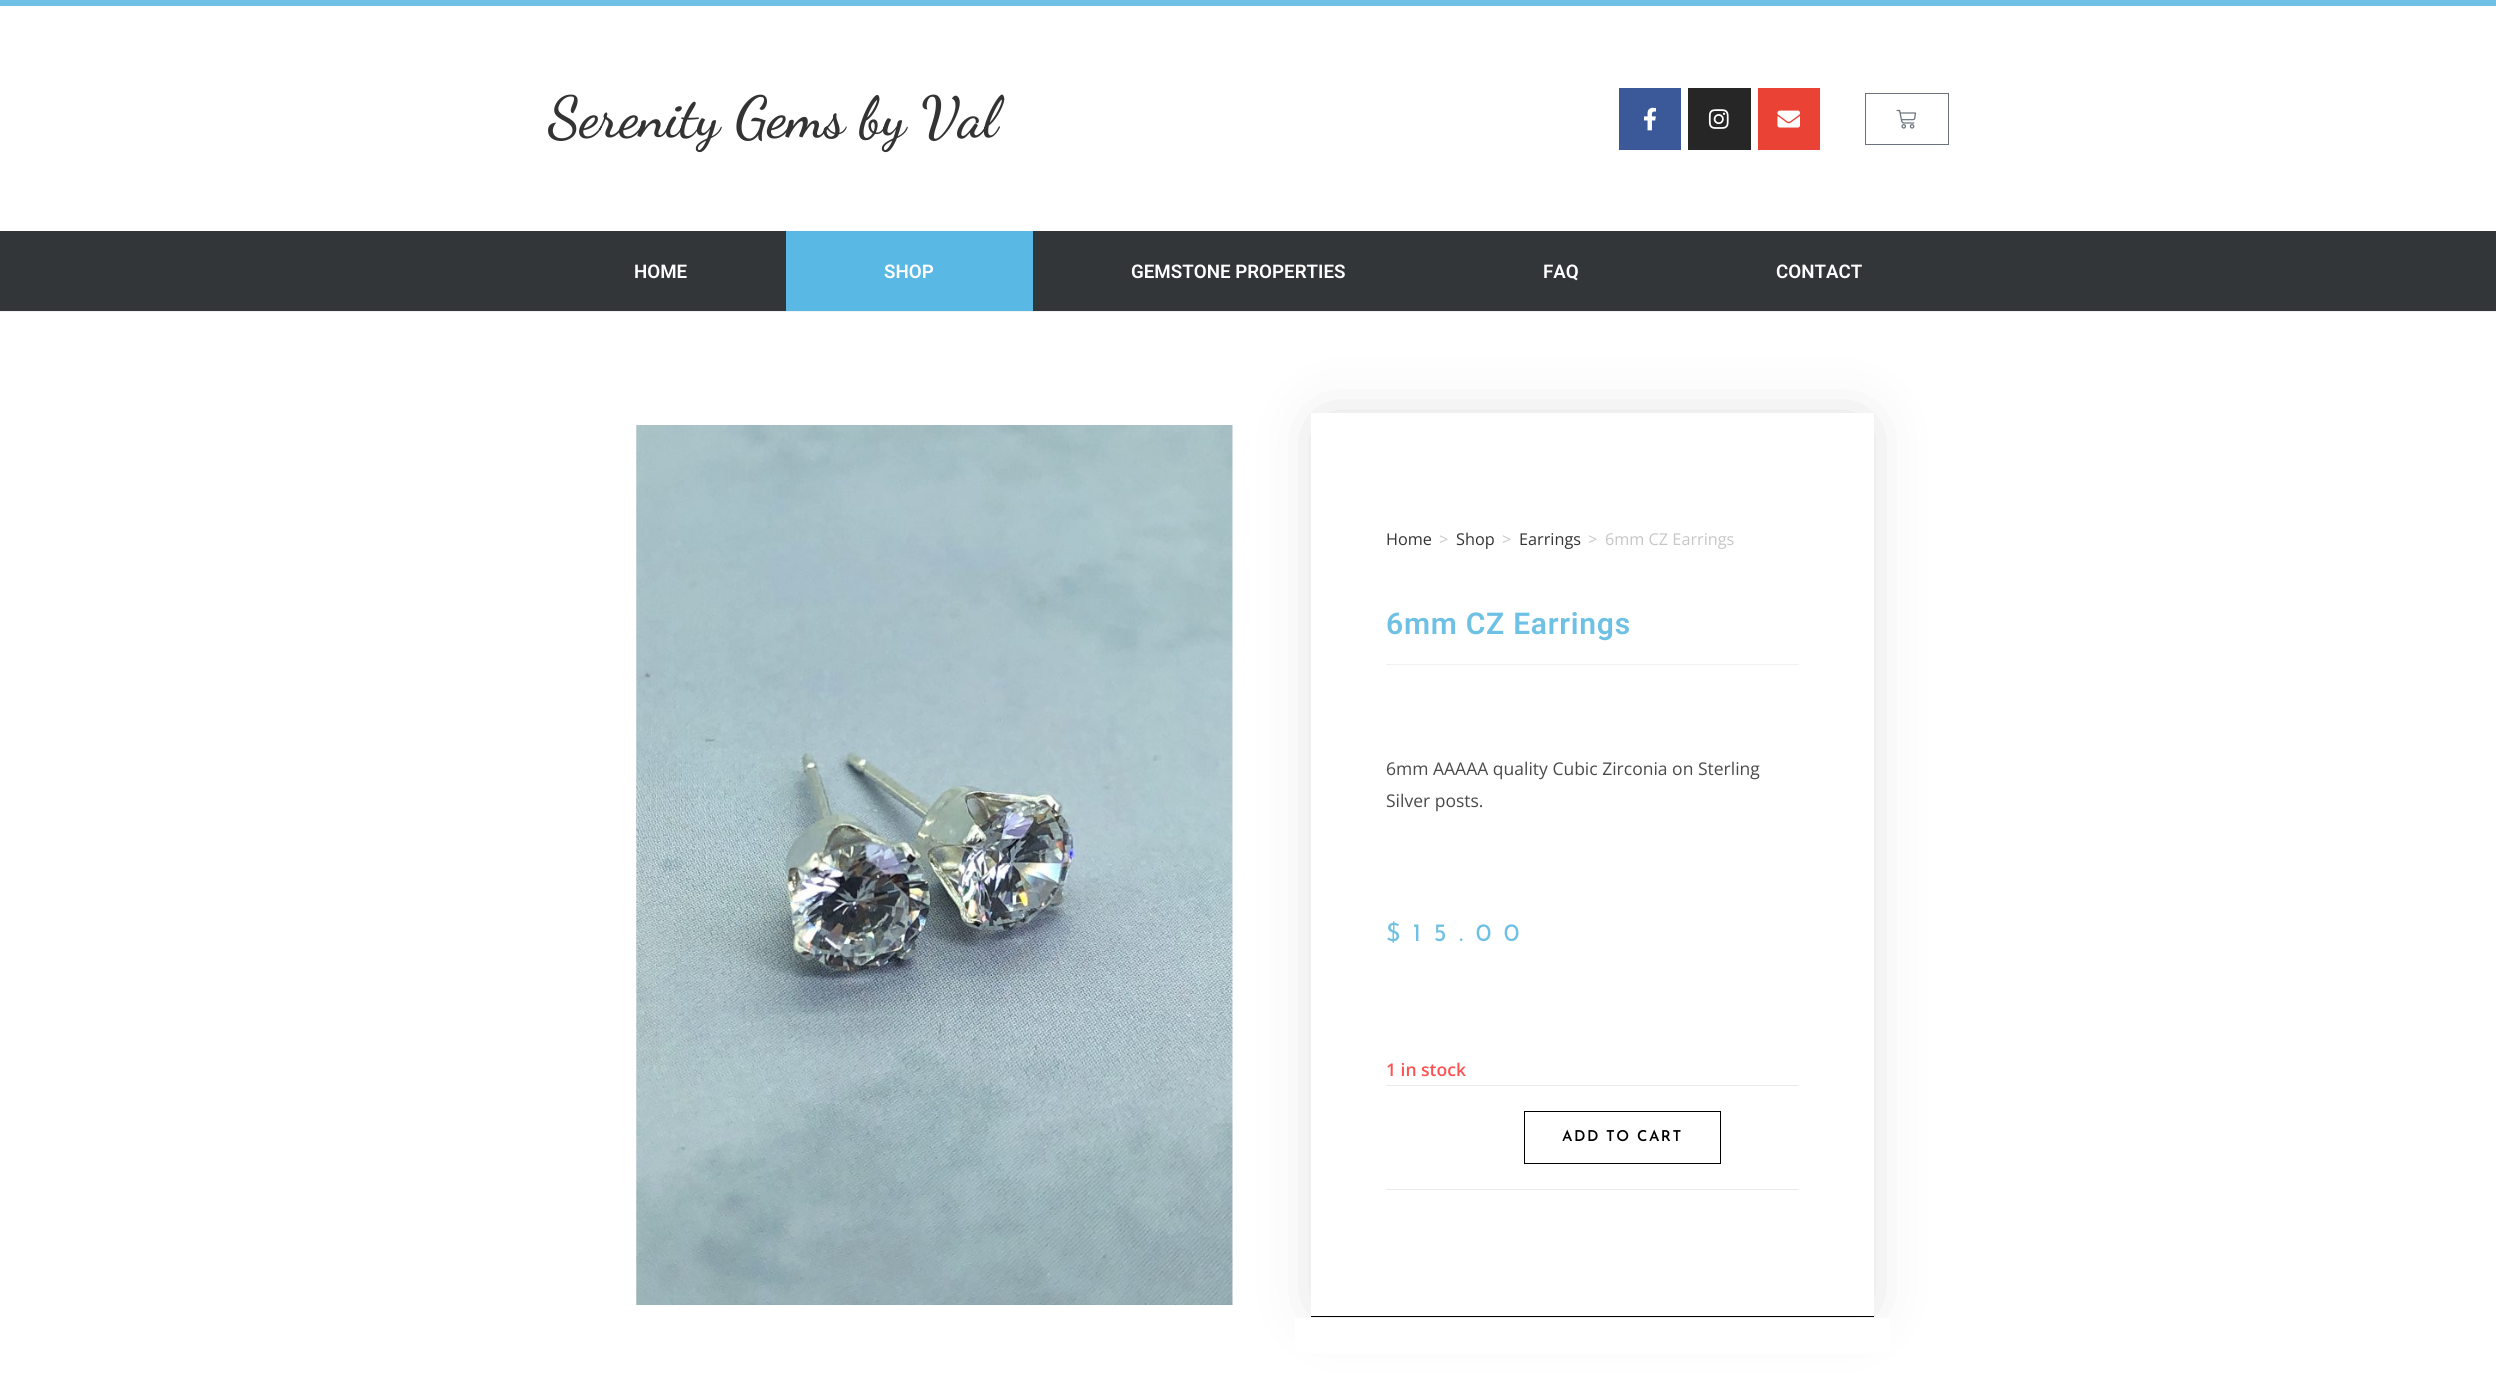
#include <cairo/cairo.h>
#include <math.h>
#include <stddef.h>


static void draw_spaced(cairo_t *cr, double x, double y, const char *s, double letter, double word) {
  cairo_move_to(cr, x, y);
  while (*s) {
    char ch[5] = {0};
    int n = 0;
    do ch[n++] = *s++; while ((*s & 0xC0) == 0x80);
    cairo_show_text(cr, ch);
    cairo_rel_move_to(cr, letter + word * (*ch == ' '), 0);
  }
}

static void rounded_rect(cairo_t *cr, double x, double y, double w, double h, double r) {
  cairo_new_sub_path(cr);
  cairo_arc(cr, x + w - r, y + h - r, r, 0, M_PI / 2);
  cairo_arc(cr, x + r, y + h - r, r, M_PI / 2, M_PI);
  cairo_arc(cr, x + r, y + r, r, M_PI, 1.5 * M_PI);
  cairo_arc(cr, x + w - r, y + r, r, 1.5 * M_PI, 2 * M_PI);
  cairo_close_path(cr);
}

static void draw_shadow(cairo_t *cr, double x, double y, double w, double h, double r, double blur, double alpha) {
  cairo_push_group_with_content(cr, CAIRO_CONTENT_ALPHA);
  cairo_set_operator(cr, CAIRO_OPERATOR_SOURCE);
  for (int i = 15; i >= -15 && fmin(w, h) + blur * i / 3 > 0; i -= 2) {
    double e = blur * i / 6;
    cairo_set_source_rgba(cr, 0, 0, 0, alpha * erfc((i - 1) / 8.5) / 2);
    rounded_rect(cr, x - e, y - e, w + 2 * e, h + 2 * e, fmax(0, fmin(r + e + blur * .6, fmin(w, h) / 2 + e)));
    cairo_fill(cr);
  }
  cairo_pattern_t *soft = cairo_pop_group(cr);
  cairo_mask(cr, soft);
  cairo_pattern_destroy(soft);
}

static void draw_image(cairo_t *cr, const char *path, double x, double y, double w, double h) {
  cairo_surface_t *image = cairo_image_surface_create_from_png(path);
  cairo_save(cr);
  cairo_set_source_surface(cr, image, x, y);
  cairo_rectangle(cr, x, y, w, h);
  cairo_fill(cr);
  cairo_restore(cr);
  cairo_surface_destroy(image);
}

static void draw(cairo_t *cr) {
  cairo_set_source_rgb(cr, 1, 1, 1);
  cairo_paint(cr);
  cairo_set_source_rgb(cr, 241 / 255.0, 241 / 255.0, 241 / 255.0);
  cairo_rectangle(cr, 0, 311, 2496, 1);
  cairo_fill(cr);
  cairo_set_source_rgb(cr, 110 / 255.0, 193 / 255.0, 228 / 255.0);
  cairo_rectangle(cr, 0, 0, 2496, 6);
  cairo_fill(cr);
  cairo_set_source_rgb(cr, 59 / 255.0, 89 / 255.0, 152 / 255.0);
  cairo_rectangle(cr, 1619, 88, 62, 62);
  cairo_fill(cr);
  draw_image(cr, "images/1.png", 1644, 107, 12, 24);
  cairo_set_source_rgb(cr, 38 / 255.0, 38 / 255.0, 38 / 255.0);
  cairo_rectangle(cr, 1688, 88, 63, 62);
  cairo_fill(cr);
  draw_image(cr, "images/2.png", 1708, 109, 21, 20);
  cairo_set_source_rgb(cr, 234 / 255.0, 67 / 255.0, 53 / 255.0);
  cairo_rectangle(cr, 1758, 88, 62, 62);
  cairo_fill(cr);
  draw_image(cr, "images/3.png", 1777, 110, 23, 18);
  cairo_rectangle(cr, 1865.5, 93.5, 83, 51);
  cairo_set_source_rgb(cr, 105 / 255.0, 114 / 255.0, 125 / 255.0);
  cairo_set_line_width(cr, 1);
  cairo_stroke(cr);
  draw_image(cr, "images/4.png", 1896, 109, 20, 20);
  cairo_set_source_rgb(cr, 51 / 255.0, 54 / 255.0, 57 / 255.0);
  cairo_rectangle(cr, 0, 231, 2496, 80);
  cairo_fill(cr);
  cairo_set_source_rgb(cr, 89 / 255.0, 184 / 255.0, 228 / 255.0);
  cairo_rectangle(cr, 786, 231, 247, 80);
  cairo_fill(cr);
  draw_image(cr, "images/5.png", 636, 425, 597, 880);
  cairo_set_source_rgb(cr, 0, 0, 0);
  draw_shadow(cr, 1324, 425, 537, 880, 0, 31, 0.17);
  cairo_set_source_rgb(cr, 1, 1, 1);
  cairo_rectangle(cr, 1311, 413, 563, 903);
  cairo_fill(cr);
  cairo_set_source_rgb(cr, 0, 0, 0);
  cairo_rectangle(cr, 1311, 1316, 563, 1);
  cairo_fill(cr);
  cairo_set_source_rgb(cr, 241 / 255.0, 241 / 255.0, 241 / 255.0);
  cairo_rectangle(cr, 1386, 664, 413, 1);
  cairo_fill(cr);
  cairo_set_source_rgb(cr, 234 / 255.0, 234 / 255.0, 234 / 255.0);
  cairo_rectangle(cr, 1386, 1085, 413, 1);
  cairo_fill(cr);
  cairo_rectangle(cr, 1386, 1189, 413, 1);
  cairo_fill(cr);
  cairo_rectangle(cr, 1524.5, 1111.5, 196, 52);
  cairo_set_source_rgb(cr, 0, 0, 0);
  cairo_stroke(cr);
  cairo_set_source_rgb(cr, 1, 1, 1);
  cairo_rectangle(cr, 1295, 1318, 595, 35);
  cairo_fill(cr);
  cairo_select_font_face(cr, "Dancing Script SemiBold", CAIRO_FONT_SLANT_NORMAL, CAIRO_FONT_WEIGHT_NORMAL);
  cairo_set_font_size(cr, 57.5);
  cairo_set_source_rgb(cr, 51 / 255.0, 51 / 255.0, 51 / 255.0);
  cairo_move_to(cr, 548, 136);
  cairo_show_text(cr, "Serenity Gems by Val");
  cairo_select_font_face(cr, "Roboto SemiBold", CAIRO_FONT_SLANT_NORMAL, CAIRO_FONT_WEIGHT_NORMAL);
  cairo_set_font_size(cr, 18.75);
  cairo_set_source_rgb(cr, 1, 1, 1);
  cairo_move_to(cr, 634, 278);
  cairo_show_text(cr, "HOME");
  cairo_move_to(cr, 884, 278);
  cairo_show_text(cr, "SHOP");
  cairo_move_to(cr, 1131, 278);
  cairo_show_text(cr, "GEMSTONE PROPERTIES");
  cairo_move_to(cr, 1543, 278);
  cairo_show_text(cr, "FAQ");
  cairo_move_to(cr, 1776, 278);
  cairo_show_text(cr, "CONTACT");
  cairo_select_font_face(cr, "Open Sans", CAIRO_FONT_SLANT_NORMAL, CAIRO_FONT_WEIGHT_NORMAL);
  cairo_set_font_size(cr, 16.25);
  cairo_set_source_rgb(cr, 51 / 255.0, 51 / 255.0, 51 / 255.0);
  cairo_move_to(cr, 1386, 545);
  cairo_show_text(cr, "Home");
  cairo_set_source_rgb(cr, 198 / 255.0, 198 / 255.0, 198 / 255.0);
  cairo_move_to(cr, 1439, 545);
  cairo_show_text(cr, ">");
  cairo_set_source_rgb(cr, 51 / 255.0, 51 / 255.0, 51 / 255.0);
  cairo_move_to(cr, 1456, 545);
  cairo_show_text(cr, "Shop");
  cairo_set_source_rgb(cr, 198 / 255.0, 198 / 255.0, 198 / 255.0);
  cairo_move_to(cr, 1502, 545);
  cairo_show_text(cr, ">");
  cairo_set_source_rgb(cr, 51 / 255.0, 51 / 255.0, 51 / 255.0);
  cairo_move_to(cr, 1519, 545);
  cairo_show_text(cr, "Earrings");
  cairo_set_source_rgb(cr, 198 / 255.0, 198 / 255.0, 198 / 255.0);
  cairo_move_to(cr, 1588, 545);
  cairo_show_text(cr, ">");
  cairo_move_to(cr, 1605, 545);
  cairo_show_text(cr, "6mm CZ Earrings");
  cairo_select_font_face(cr, "Roboto SemiBold", CAIRO_FONT_SLANT_NORMAL, CAIRO_FONT_WEIGHT_NORMAL);
  cairo_set_font_size(cr, 30);
  cairo_set_source_rgb(cr, 110 / 255.0, 193 / 255.0, 228 / 255.0);
  draw_spaced(cr, 1386, 634, "6mm CZ Earrings", 0.75, 0);
  cairo_select_font_face(cr, "Open Sans", CAIRO_FONT_SLANT_NORMAL, CAIRO_FONT_WEIGHT_NORMAL);
  cairo_set_font_size(cr, 17.5);
  cairo_set_source_rgb(cr, 74 / 255.0, 74 / 255.0, 74 / 255.0);
  cairo_move_to(cr, 1386, 775);
  cairo_show_text(cr, "6mm AAAAA quality Cubic Zirconia on Sterling");
  cairo_move_to(cr, 1386, 807);
  cairo_show_text(cr, "Silver posts.");
  cairo_select_font_face(cr, "Josefin Sans", CAIRO_FONT_SLANT_NORMAL, CAIRO_FONT_WEIGHT_NORMAL);
  cairo_set_font_size(cr, 25);
  cairo_set_source_rgb(cr, 110 / 255.0, 193 / 255.0, 228 / 255.0);
  draw_spaced(cr, 1386, 941, "$15.00", 12.5, 0);
  cairo_select_font_face(cr, "Open Sans SemiBold", CAIRO_FONT_SLANT_NORMAL, CAIRO_FONT_WEIGHT_NORMAL);
  cairo_set_font_size(cr, 17.5);
  cairo_set_source_rgb(cr, 254 / 255.0, 82 / 255.0, 82 / 255.0);
  cairo_move_to(cr, 1386, 1076);
  cairo_show_text(cr, "1 in stock");
  cairo_select_font_face(cr, "Josefin Sans SemiBold", CAIRO_FONT_SLANT_NORMAL, CAIRO_FONT_WEIGHT_NORMAL);
  cairo_set_font_size(cr, 15);
  cairo_set_source_rgb(cr, 0, 0, 0);
  draw_spaced(cr, 1562, 1141, "ADD TO CART", 1.5, 0);
}

int main(void) {
  cairo_surface_t *surface = cairo_image_surface_create(CAIRO_FORMAT_RGB24, 2496, 1387);
  cairo_t *cr = cairo_create(surface);
  cairo_font_options_t *options = cairo_font_options_create();
  cairo_font_options_set_hint_metrics(options, CAIRO_HINT_METRICS_OFF);
  cairo_font_options_set_hint_style(options, CAIRO_HINT_STYLE_NONE);
  cairo_set_font_options(cr, options);
  cairo_set_miter_limit(cr, 4);
  draw(cr);
  cairo_surface_write_to_png(surface, "out.png");
  cairo_font_options_destroy(options);
  cairo_destroy(cr);
  cairo_surface_destroy(surface);
  return 0;
}
